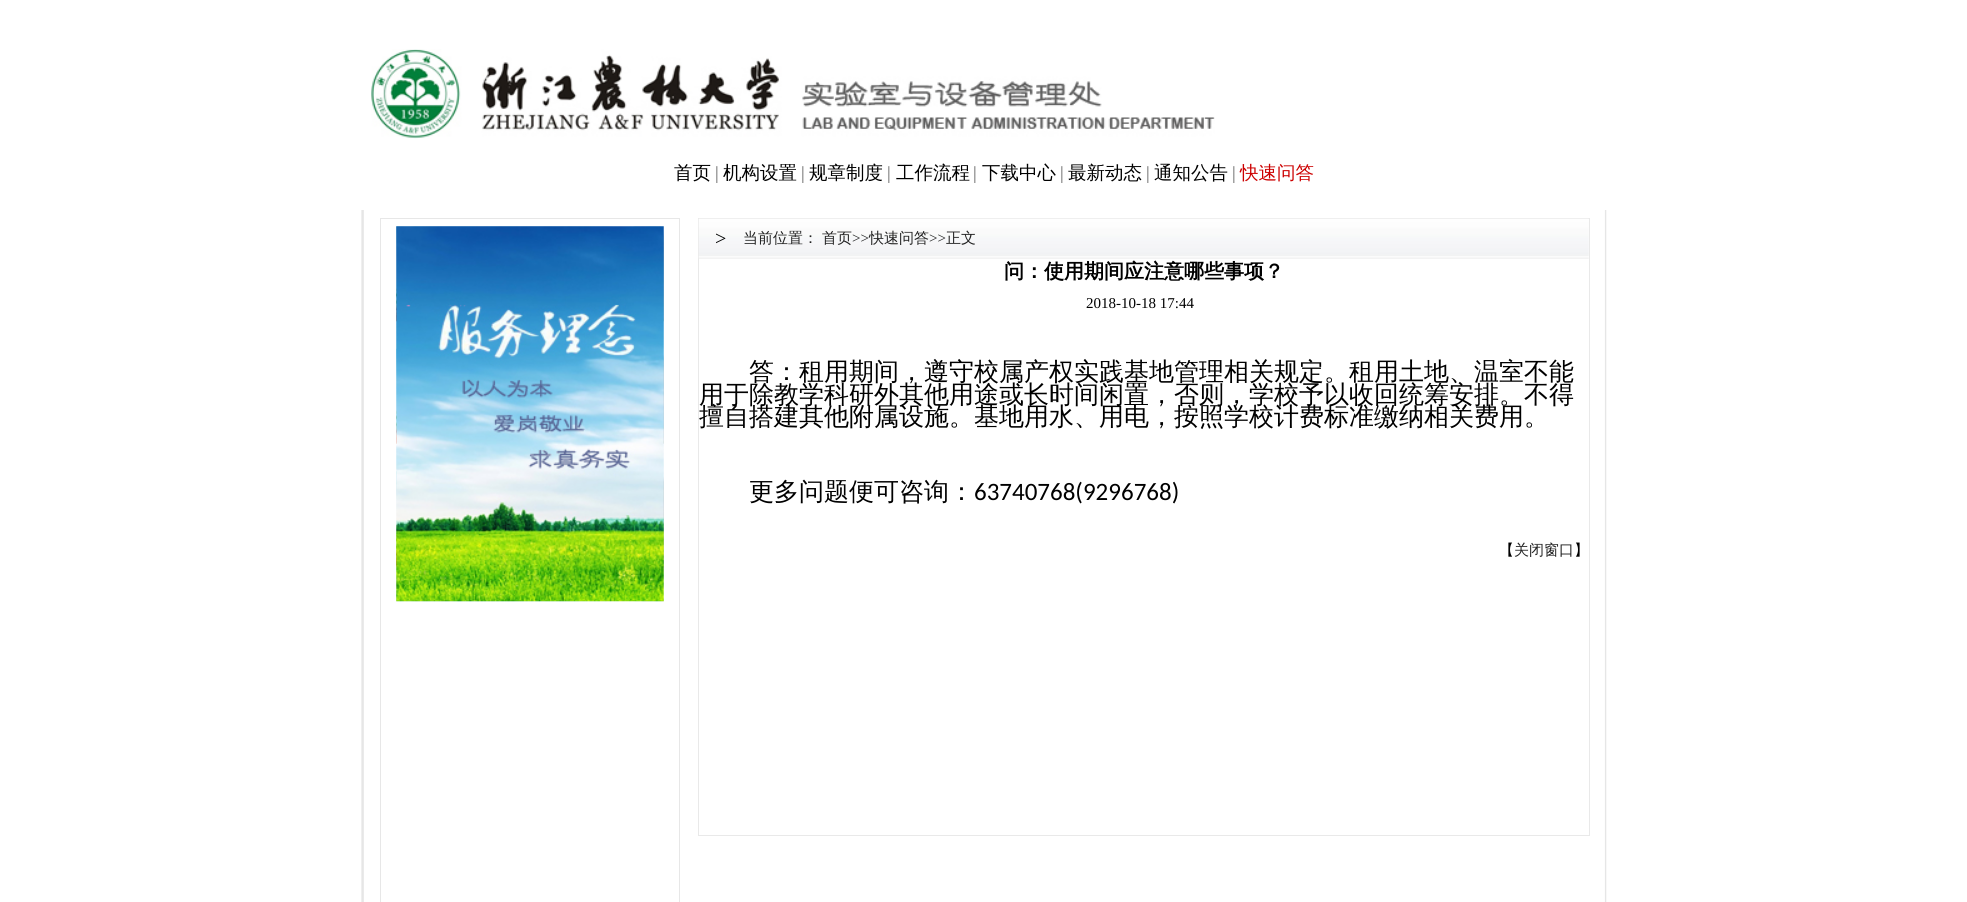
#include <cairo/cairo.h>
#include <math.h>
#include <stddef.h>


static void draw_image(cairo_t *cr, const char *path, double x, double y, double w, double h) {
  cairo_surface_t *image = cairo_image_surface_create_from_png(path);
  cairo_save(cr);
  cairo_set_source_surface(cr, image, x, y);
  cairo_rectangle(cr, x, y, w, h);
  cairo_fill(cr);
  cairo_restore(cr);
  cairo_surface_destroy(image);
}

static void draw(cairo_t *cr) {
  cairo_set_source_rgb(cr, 1, 1, 1);
  cairo_paint(cr);
  draw_image(cr, "images/1.png", 371, 49, 844, 90);
  draw_image(cr, "images/2.png", 361, 210, 1246, 692);
  cairo_rectangle(cr, 380.5, 218.5, 299, 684);
  cairo_set_source_rgb(cr, 231 / 255.0, 231 / 255.0, 231 / 255.0);
  cairo_set_line_width(cr, 1);
  cairo_stroke(cr);
  draw_image(cr, "images/3.png", 396, 226, 268, 376);
  draw_image(cr, "images/4.png", 396, 226, 268, 376);
  cairo_rectangle(cr, 698.5, 218.5, 891, 617);
  cairo_set_source_rgb(cr, 233 / 255.0, 233 / 255.0, 233 / 255.0);
  cairo_stroke(cr);
  draw_image(cr, "images/5.png", 698, 218, 891, 41);
  cairo_select_font_face(cr, "WenQuanYi Zen Hei Medium", CAIRO_FONT_SLANT_NORMAL, CAIRO_FONT_WEIGHT_NORMAL);
  cairo_set_font_size(cr, 18.5);
  cairo_set_source_rgb(cr, 0, 0, 0);
  cairo_move_to(cr, 674, 179);
  cairo_show_text(cr, "首页");
  cairo_select_font_face(cr, "Liberation Serif", CAIRO_FONT_SLANT_NORMAL, CAIRO_FONT_WEIGHT_NORMAL);
  cairo_set_source_rgb(cr, 102 / 255.0, 102 / 255.0, 102 / 255.0);
  cairo_move_to(cr, 715, 179);
  cairo_show_text(cr, "|");
  cairo_select_font_face(cr, "WenQuanYi Zen Hei Medium", CAIRO_FONT_SLANT_NORMAL, CAIRO_FONT_WEIGHT_NORMAL);
  cairo_set_source_rgb(cr, 0, 0, 0);
  cairo_move_to(cr, 723, 179);
  cairo_show_text(cr, "机构设置");
  cairo_select_font_face(cr, "Liberation Serif", CAIRO_FONT_SLANT_NORMAL, CAIRO_FONT_WEIGHT_NORMAL);
  cairo_set_source_rgb(cr, 102 / 255.0, 102 / 255.0, 102 / 255.0);
  cairo_move_to(cr, 801, 179);
  cairo_show_text(cr, "|");
  cairo_select_font_face(cr, "WenQuanYi Zen Hei Medium", CAIRO_FONT_SLANT_NORMAL, CAIRO_FONT_WEIGHT_NORMAL);
  cairo_set_source_rgb(cr, 0, 0, 0);
  cairo_move_to(cr, 809, 179);
  cairo_show_text(cr, "规章制度");
  cairo_select_font_face(cr, "Liberation Serif", CAIRO_FONT_SLANT_NORMAL, CAIRO_FONT_WEIGHT_NORMAL);
  cairo_set_source_rgb(cr, 102 / 255.0, 102 / 255.0, 102 / 255.0);
  cairo_move_to(cr, 887, 179);
  cairo_show_text(cr, "|");
  cairo_select_font_face(cr, "WenQuanYi Zen Hei Medium", CAIRO_FONT_SLANT_NORMAL, CAIRO_FONT_WEIGHT_NORMAL);
  cairo_set_source_rgb(cr, 0, 0, 0);
  cairo_move_to(cr, 896, 179);
  cairo_show_text(cr, "工作流程");
  cairo_select_font_face(cr, "Liberation Serif", CAIRO_FONT_SLANT_NORMAL, CAIRO_FONT_WEIGHT_NORMAL);
  cairo_set_source_rgb(cr, 102 / 255.0, 102 / 255.0, 102 / 255.0);
  cairo_move_to(cr, 973, 179);
  cairo_show_text(cr, "|");
  cairo_select_font_face(cr, "WenQuanYi Zen Hei Medium", CAIRO_FONT_SLANT_NORMAL, CAIRO_FONT_WEIGHT_NORMAL);
  cairo_set_source_rgb(cr, 0, 0, 0);
  cairo_move_to(cr, 982, 179);
  cairo_show_text(cr, "下载中心");
  cairo_select_font_face(cr, "Liberation Serif", CAIRO_FONT_SLANT_NORMAL, CAIRO_FONT_WEIGHT_NORMAL);
  cairo_set_source_rgb(cr, 102 / 255.0, 102 / 255.0, 102 / 255.0);
  cairo_move_to(cr, 1060, 179);
  cairo_show_text(cr, "|");
  cairo_select_font_face(cr, "WenQuanYi Zen Hei Medium", CAIRO_FONT_SLANT_NORMAL, CAIRO_FONT_WEIGHT_NORMAL);
  cairo_set_source_rgb(cr, 0, 0, 0);
  cairo_move_to(cr, 1068, 179);
  cairo_show_text(cr, "最新动态");
  cairo_select_font_face(cr, "Liberation Serif", CAIRO_FONT_SLANT_NORMAL, CAIRO_FONT_WEIGHT_NORMAL);
  cairo_set_source_rgb(cr, 102 / 255.0, 102 / 255.0, 102 / 255.0);
  cairo_move_to(cr, 1146, 179);
  cairo_show_text(cr, "|");
  cairo_select_font_face(cr, "WenQuanYi Zen Hei Medium", CAIRO_FONT_SLANT_NORMAL, CAIRO_FONT_WEIGHT_NORMAL);
  cairo_set_source_rgb(cr, 0, 0, 0);
  cairo_move_to(cr, 1154, 179);
  cairo_show_text(cr, "通知公告");
  cairo_select_font_face(cr, "Liberation Serif", CAIRO_FONT_SLANT_NORMAL, CAIRO_FONT_WEIGHT_NORMAL);
  cairo_set_source_rgb(cr, 102 / 255.0, 102 / 255.0, 102 / 255.0);
  cairo_move_to(cr, 1232, 179);
  cairo_show_text(cr, "|");
  cairo_select_font_face(cr, "WenQuanYi Zen Hei Medium", CAIRO_FONT_SLANT_NORMAL, CAIRO_FONT_WEIGHT_NORMAL);
  cairo_set_source_rgb(cr, 204 / 255.0, 0, 0);
  cairo_move_to(cr, 1240, 179);
  cairo_show_text(cr, "快速问答");
  cairo_select_font_face(cr, "Liberation Serif", CAIRO_FONT_SLANT_NORMAL, CAIRO_FONT_WEIGHT_NORMAL);
  cairo_set_font_size(cr, 20);
  cairo_set_source_rgb(cr, 0, 0, 0);
  cairo_move_to(cr, 715, 245);
  cairo_show_text(cr, ">");
  cairo_select_font_face(cr, "WenQuanYi Zen Hei Medium", CAIRO_FONT_SLANT_NORMAL, CAIRO_FONT_WEIGHT_NORMAL);
  cairo_set_font_size(cr, 15);
  cairo_set_source_rgb(cr, 34 / 255.0, 34 / 255.0, 34 / 255.0);
  cairo_move_to(cr, 743, 243);
  cairo_show_text(cr, "当前位置：");
  cairo_move_to(cr, 822, 243);
  cairo_show_text(cr, "首页");
  cairo_select_font_face(cr, "Liberation Serif", CAIRO_FONT_SLANT_NORMAL, CAIRO_FONT_WEIGHT_NORMAL);
  cairo_move_to(cr, 852, 243);
  cairo_show_text(cr, ">>");
  cairo_select_font_face(cr, "WenQuanYi Zen Hei Medium", CAIRO_FONT_SLANT_NORMAL, CAIRO_FONT_WEIGHT_NORMAL);
  cairo_move_to(cr, 869, 243);
  cairo_show_text(cr, "快速问答");
  cairo_select_font_face(cr, "Liberation Serif", CAIRO_FONT_SLANT_NORMAL, CAIRO_FONT_WEIGHT_NORMAL);
  cairo_move_to(cr, 929, 243);
  cairo_show_text(cr, ">>");
  cairo_select_font_face(cr, "WenQuanYi Zen Hei Medium", CAIRO_FONT_SLANT_NORMAL, CAIRO_FONT_WEIGHT_NORMAL);
  cairo_move_to(cr, 946, 243);
  cairo_show_text(cr, "正文");
  cairo_select_font_face(cr, "WenQuanYi Zen Hei", CAIRO_FONT_SLANT_NORMAL, CAIRO_FONT_WEIGHT_BOLD);
  cairo_set_font_size(cr, 20);
  cairo_set_source_rgb(cr, 0, 0, 0);
  cairo_move_to(cr, 1004, 278);
  cairo_show_text(cr, "问：使用期间应注意哪些事项？");
  cairo_select_font_face(cr, "Liberation Serif", CAIRO_FONT_SLANT_NORMAL, CAIRO_FONT_WEIGHT_NORMAL);
  cairo_set_font_size(cr, 15);
  cairo_move_to(cr, 1086, 308);
  cairo_show_text(cr, "2018-10-18 17:44");
  cairo_select_font_face(cr, "WenQuanYi Zen Hei Medium", CAIRO_FONT_SLANT_NORMAL, CAIRO_FONT_WEIGHT_NORMAL);
  cairo_set_font_size(cr, 25);
  cairo_move_to(cr, 749, 380);
  cairo_show_text(cr, "答：租用期间，遵守校属产权实践基地管理相关规定。租用土地、温室不能");
  cairo_move_to(cr, 699, 403);
  cairo_show_text(cr, "用于除教学科研外其他用途或长时间闲置，否则，学校予以收回统筹安排。不得");
  cairo_move_to(cr, 699, 425);
  cairo_show_text(cr, "擅自搭建其他附属设施。基地用水、用电，按照学校计费标准缴纳相关费用。");
  cairo_move_to(cr, 749, 500);
  cairo_show_text(cr, "更多问题便可咨询：");
  cairo_select_font_face(cr, "Carlito", CAIRO_FONT_SLANT_NORMAL, CAIRO_FONT_WEIGHT_NORMAL);
  cairo_move_to(cr, 974, 500);
  cairo_show_text(cr, "63740768(9296768)");
  cairo_select_font_face(cr, "WenQuanYi Zen Hei Medium", CAIRO_FONT_SLANT_NORMAL, CAIRO_FONT_WEIGHT_NORMAL);
  cairo_set_font_size(cr, 15);
  cairo_move_to(cr, 1499, 555);
  cairo_show_text(cr, "【");
  cairo_set_source_rgb(cr, 34 / 255.0, 34 / 255.0, 34 / 255.0);
  cairo_move_to(cr, 1514, 555);
  cairo_show_text(cr, "关闭窗口");
  cairo_set_source_rgb(cr, 0, 0, 0);
  cairo_move_to(cr, 1574, 555);
  cairo_show_text(cr, "】");
}

int main(void) {
  cairo_surface_t *surface = cairo_image_surface_create(CAIRO_FORMAT_RGB24, 1967, 902);
  cairo_t *cr = cairo_create(surface);
  cairo_font_options_t *options = cairo_font_options_create();
  cairo_font_options_set_hint_metrics(options, CAIRO_HINT_METRICS_OFF);
  cairo_font_options_set_hint_style(options, CAIRO_HINT_STYLE_NONE);
  cairo_set_font_options(cr, options);
  cairo_set_miter_limit(cr, 4);
  draw(cr);
  cairo_surface_write_to_png(surface, "out.png");
  cairo_font_options_destroy(options);
  cairo_destroy(cr);
  cairo_surface_destroy(surface);
  return 0;
}
